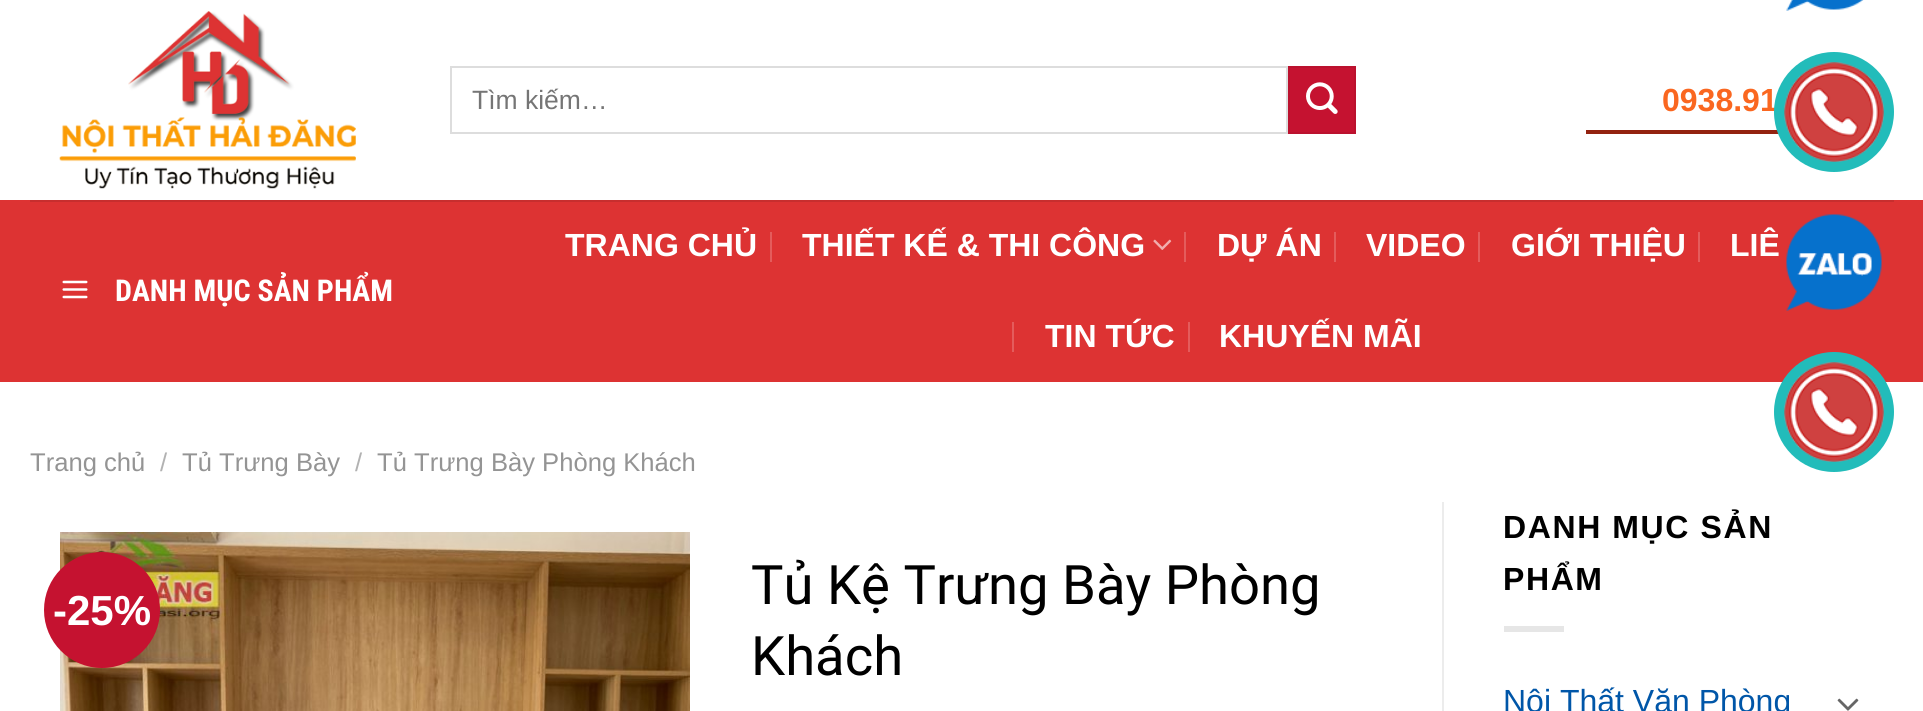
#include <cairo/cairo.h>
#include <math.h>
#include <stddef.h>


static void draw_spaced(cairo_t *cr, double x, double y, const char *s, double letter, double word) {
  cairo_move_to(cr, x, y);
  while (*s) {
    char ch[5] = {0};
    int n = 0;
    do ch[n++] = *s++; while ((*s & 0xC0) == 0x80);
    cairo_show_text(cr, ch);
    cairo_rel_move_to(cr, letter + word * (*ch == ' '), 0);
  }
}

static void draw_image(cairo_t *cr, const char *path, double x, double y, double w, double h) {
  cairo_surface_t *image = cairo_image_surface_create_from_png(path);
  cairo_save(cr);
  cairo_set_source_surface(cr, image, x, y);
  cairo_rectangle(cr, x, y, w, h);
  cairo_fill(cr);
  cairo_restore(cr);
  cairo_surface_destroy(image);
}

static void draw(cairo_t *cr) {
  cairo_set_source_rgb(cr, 1, 1, 1);
  cairo_paint(cr);
  draw_image(cr, "images/1.png", 59, 11, 297, 178);
  cairo_rectangle(cr, 451, 67, 836, 66);
  cairo_set_source_rgb(cr, 221 / 255.0, 221 / 255.0, 221 / 255.0);
  cairo_stroke(cr);
  cairo_set_source_rgb(cr, 197 / 255.0, 18 / 255.0, 48 / 255.0);
  cairo_rectangle(cr, 1289, 67, 66, 66);
  cairo_fill_preserve(cr);
  cairo_set_source_rgb(cr, 187 / 255.0, 17 / 255.0, 46 / 255.0);
  cairo_stroke(cr);
  draw_image(cr, "images/2.png", 1306, 82, 32, 32);
  cairo_set_source_rgb(cr, 147 / 255.0, 34 / 255.0, 16 / 255.0);
  cairo_rectangle(cr, 1586, 130, 193, 4);
  cairo_fill(cr);
  cairo_set_source_rgb(cr, 221 / 255.0, 51 / 255.0, 51 / 255.0);
  cairo_rectangle(cr, 0, 200, 1923, 182);
  cairo_fill(cr);
  cairo_set_source_rgb(cr, 199 / 255.0, 46 / 255.0, 46 / 255.0);
  cairo_rectangle(cr, 30, 200, 1864, 2);
  cairo_fill(cr);
  draw_image(cr, "images/3.png", 62, 280, 26, 19);
  cairo_set_source_rgb(cr, 228 / 255.0, 92 / 255.0, 92 / 255.0);
  cairo_rectangle(cr, 770, 232, 2, 30);
  cairo_fill(cr);
  draw_image(cr, "images/4.png", 1153, 239, 19, 11);
  cairo_rectangle(cr, 1184, 232, 2, 30);
  cairo_fill(cr);
  cairo_rectangle(cr, 1334, 232, 2, 30);
  cairo_fill(cr);
  cairo_rectangle(cr, 1478, 232, 2, 30);
  cairo_fill(cr);
  cairo_rectangle(cr, 1698, 232, 2, 30);
  cairo_fill(cr);
  cairo_rectangle(cr, 1012, 322, 2, 30);
  cairo_fill(cr);
  cairo_rectangle(cr, 1188, 322, 2, 30);
  cairo_fill(cr);
  draw_image(cr, "images/5.png", 1786, 0, 78, 11);
  draw_image(cr, "images/7.png", 1786, 214, 96, 97);
  cairo_set_source_rgb(cr, 34 / 255.0, 188 / 255.0, 186 / 255.0);
  cairo_arc(cr, 1834, 412, 60, 0, 2 * M_PI);
  cairo_fill(cr);
  draw_image(cr, "images/8.png", 1784, 362, 100, 100);
  cairo_set_source_rgb(cr, 236 / 255.0, 236 / 255.0, 236 / 255.0);
  cairo_rectangle(cr, 1442, 502, 2, 209);
  cairo_fill(cr);
  draw_image(cr, "images/9.png", 60, 532, 630, 179);
  cairo_set_source_rgb(cr, 197 / 255.0, 18 / 255.0, 48 / 255.0);
  cairo_arc(cr, 102, 610, 58, 0, 2 * M_PI);
  cairo_fill(cr);
  cairo_set_source_rgb(cr, 230 / 255.0, 230 / 255.0, 230 / 255.0);
  cairo_rectangle(cr, 1504, 626, 60, 6);
  cairo_fill(cr);
  draw_image(cr, "images/10.png", 1837, 698, 22, 13);
  cairo_select_font_face(cr, "Liberation Sans", CAIRO_FONT_SLANT_NORMAL, CAIRO_FONT_WEIGHT_NORMAL);
  cairo_set_font_size(cr, 26.5);
  cairo_set_source_rgb(cr, 117 / 255.0, 117 / 255.0, 117 / 255.0);
  cairo_move_to(cr, 472, 109);
  cairo_show_text(cr, "Tìm kiếm…");
  cairo_select_font_face(cr, "Liberation Sans", CAIRO_FONT_SLANT_NORMAL, CAIRO_FONT_WEIGHT_BOLD);
  cairo_set_font_size(cr, 32);
  cairo_set_source_rgb(cr, 250 / 255.0, 103 / 255.0, 32 / 255.0);
  cairo_move_to(cr, 1662, 111);
  cairo_show_text(cr, "0938.91");
  cairo_select_font_face(cr, "Roboto Condensed", CAIRO_FONT_SLANT_NORMAL, CAIRO_FONT_WEIGHT_BOLD);
  cairo_set_font_size(cr, 30);
  cairo_set_source_rgb(cr, 1, 1, 1);
  cairo_move_to(cr, 115, 301);
  cairo_show_text(cr, "DANH MỤC SẢN PHẨM");
  cairo_select_font_face(cr, "Liberation Sans", CAIRO_FONT_SLANT_NORMAL, CAIRO_FONT_WEIGHT_BOLD);
  cairo_set_font_size(cr, 32);
  cairo_move_to(cr, 565, 256);
  cairo_show_text(cr, "TRANG CHỦ");
  cairo_move_to(cr, 802, 256);
  cairo_show_text(cr, "THIẾT KẾ & THI CÔNG");
  cairo_move_to(cr, 1217, 256);
  cairo_show_text(cr, "DỰ ÁN");
  cairo_move_to(cr, 1366, 256);
  cairo_show_text(cr, "VIDEO");
  cairo_move_to(cr, 1511, 256);
  cairo_show_text(cr, "GIỚI THIỆU");
  cairo_move_to(cr, 1730, 256);
  cairo_show_text(cr, "LIÊ");
  cairo_move_to(cr, 1045, 347);
  cairo_show_text(cr, "TIN TỨC");
  cairo_move_to(cr, 1219, 347);
  cairo_show_text(cr, "KHUYẾN MÃI");
  cairo_select_font_face(cr, "Liberation Sans", CAIRO_FONT_SLANT_NORMAL, CAIRO_FONT_WEIGHT_NORMAL);
  cairo_set_font_size(cr, 25.6);
  cairo_set_source_rgb(cr, 148 / 255.0, 148 / 255.0, 148 / 255.0);
  cairo_move_to(cr, 30, 471);
  cairo_show_text(cr, "Trang chủ");
  cairo_set_source_rgb(cr, 178 / 255.0, 178 / 255.0, 178 / 255.0);
  cairo_move_to(cr, 160, 471);
  cairo_show_text(cr, "/");
  cairo_set_source_rgb(cr, 148 / 255.0, 148 / 255.0, 148 / 255.0);
  cairo_move_to(cr, 182, 471);
  cairo_show_text(cr, "Tủ Trưng Bày");
  cairo_set_source_rgb(cr, 178 / 255.0, 178 / 255.0, 178 / 255.0);
  cairo_move_to(cr, 355, 471);
  cairo_show_text(cr, "/");
  cairo_set_source_rgb(cr, 148 / 255.0, 148 / 255.0, 148 / 255.0);
  cairo_move_to(cr, 377, 471);
  cairo_show_text(cr, "Tủ Trưng Bày Phòng Khách");
  cairo_set_source_rgb(cr, 34 / 255.0, 188 / 255.0, 186 / 255.0);
  cairo_new_path(cr);
  cairo_arc(cr, 1834, 112, 60, 0, 2 * M_PI);
  cairo_fill(cr);
  draw_image(cr, "images/6.png", 1784, 62, 100, 100);
  cairo_select_font_face(cr, "Liberation Sans", CAIRO_FONT_SLANT_NORMAL, CAIRO_FONT_WEIGHT_BOLD);
  cairo_set_font_size(cr, 42);
  cairo_set_source_rgb(cr, 1, 1, 1);
  cairo_move_to(cr, 53, 625);
  cairo_show_text(cr, "-25%");
  cairo_select_font_face(cr, "Roboto", CAIRO_FONT_SLANT_NORMAL, CAIRO_FONT_WEIGHT_NORMAL);
  cairo_set_font_size(cr, 54.4);
  cairo_set_source_rgb(cr, 0, 0, 0);
  cairo_move_to(cr, 751, 604);
  cairo_show_text(cr, "Tủ Kệ Trưng Bày Phòng");
  cairo_move_to(cr, 751, 675);
  cairo_show_text(cr, "Khách");
  cairo_select_font_face(cr, "Liberation Sans", CAIRO_FONT_SLANT_NORMAL, CAIRO_FONT_WEIGHT_BOLD);
  cairo_set_font_size(cr, 32);
  draw_spaced(cr, 1503, 538, "DANH MỤC SẢN", 1.6, 0);
  draw_spaced(cr, 1503, 590, "PHẨM", 1.6, 0);
  cairo_select_font_face(cr, "Liberation Sans", CAIRO_FONT_SLANT_NORMAL, CAIRO_FONT_WEIGHT_NORMAL);
  cairo_set_source_rgb(cr, 0, 86 / 255.0, 168 / 255.0);
  cairo_move_to(cr, 1503, 712);
  cairo_show_text(cr, "Nội Thất Văn Phòng");
}

int main(void) {
  cairo_surface_t *surface = cairo_image_surface_create(CAIRO_FORMAT_RGB24, 1923, 711);
  cairo_t *cr = cairo_create(surface);
  cairo_font_options_t *options = cairo_font_options_create();
  cairo_font_options_set_hint_metrics(options, CAIRO_HINT_METRICS_OFF);
  cairo_font_options_set_hint_style(options, CAIRO_HINT_STYLE_NONE);
  cairo_set_font_options(cr, options);
  cairo_set_miter_limit(cr, 4);
  draw(cr);
  cairo_surface_write_to_png(surface, "out.png");
  cairo_font_options_destroy(options);
  cairo_destroy(cr);
  cairo_surface_destroy(surface);
  return 0;
}
